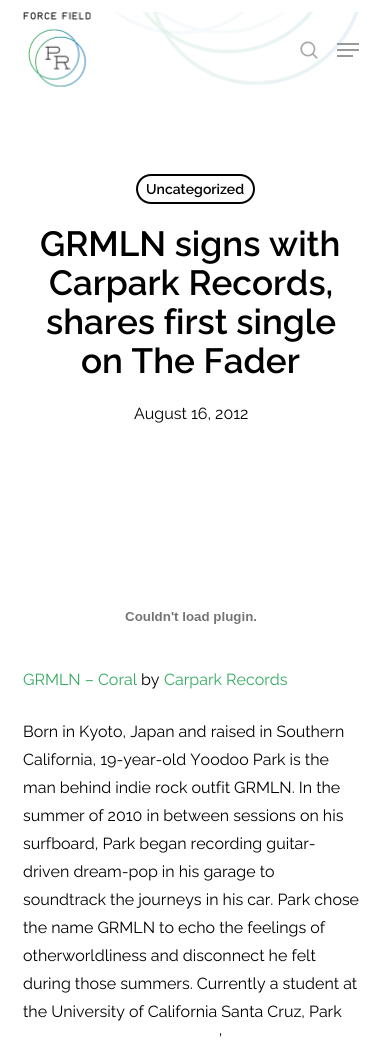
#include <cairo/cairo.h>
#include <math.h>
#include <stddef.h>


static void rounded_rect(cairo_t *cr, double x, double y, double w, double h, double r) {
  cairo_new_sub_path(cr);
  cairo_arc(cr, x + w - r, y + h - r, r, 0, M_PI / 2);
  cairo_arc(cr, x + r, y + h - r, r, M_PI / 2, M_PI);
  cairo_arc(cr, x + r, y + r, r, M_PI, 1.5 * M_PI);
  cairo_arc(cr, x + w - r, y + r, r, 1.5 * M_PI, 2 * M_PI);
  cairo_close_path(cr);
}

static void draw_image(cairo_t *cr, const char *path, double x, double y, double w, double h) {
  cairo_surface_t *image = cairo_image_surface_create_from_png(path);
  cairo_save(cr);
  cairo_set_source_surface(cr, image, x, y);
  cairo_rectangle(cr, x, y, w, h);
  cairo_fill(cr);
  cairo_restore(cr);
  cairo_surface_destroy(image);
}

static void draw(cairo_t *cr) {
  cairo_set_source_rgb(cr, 1, 1, 1);
  cairo_paint(cr);
  draw_image(cr, "images/1.png", 114, 12, 245, 73);
  draw_image(cr, "images/2.png", 23, 12, 68, 75);
  draw_image(cr, "images/3.png", 300, 41, 18, 18);
  cairo_set_source_rgb(cr, 153 / 255.0, 153 / 255.0, 153 / 255.0);
  cairo_rectangle(cr, 337, 43, 22, 2);
  cairo_fill(cr);
  cairo_rectangle(cr, 337, 55, 16, 2);
  cairo_fill(cr);
  cairo_rectangle(cr, 337, 49, 22, 2);
  cairo_fill(cr);
  rounded_rect(cr, 137, 175, 117, 28, 14);
  cairo_set_source_rgb(cr, 0, 0, 0);
  cairo_stroke(cr);
  draw_image(cr, "images/4.png", 125, 612, 131, 12);
  cairo_select_font_face(cr, "Raleway SemiBold", CAIRO_FONT_SLANT_NORMAL, CAIRO_FONT_WEIGHT_NORMAL);
  cairo_set_font_size(cr, 14);
  cairo_move_to(cr, 146, 194);
  cairo_show_text(cr, "Uncategorized");
  cairo_set_font_size(cr, 35);
  cairo_move_to(cr, 40, 256);
  cairo_show_text(cr, "GRMLN signs with");
  cairo_move_to(cr, 49, 295);
  cairo_show_text(cr, "Carpark Records,");
  cairo_move_to(cr, 46, 334);
  cairo_show_text(cr, "shares first single");
  cairo_move_to(cr, 81, 373);
  cairo_show_text(cr, "on The Fader");
  cairo_select_font_face(cr, "Raleway", CAIRO_FONT_SLANT_NORMAL, CAIRO_FONT_WEIGHT_NORMAL);
  cairo_set_font_size(cr, 16);
  cairo_move_to(cr, 134, 419);
  cairo_show_text(cr, "August 16, 2012");
  cairo_set_source_rgb(cr, 52 / 255.0, 170 / 255.0, 97 / 255.0);
  cairo_move_to(cr, 23, 685);
  cairo_show_text(cr, "GRMLN – Coral");
  cairo_set_source_rgb(cr, 0, 0, 0);
  cairo_move_to(cr, 141, 685);
  cairo_show_text(cr, "by");
  cairo_set_source_rgb(cr, 52 / 255.0, 170 / 255.0, 97 / 255.0);
  cairo_move_to(cr, 164, 685);
  cairo_show_text(cr, "Carpark Records");
  cairo_set_source_rgb(cr, 0, 0, 0);
  cairo_move_to(cr, 23, 737);
  cairo_show_text(cr, "Born in Kyoto, Japan and raised in Southern");
  cairo_move_to(cr, 23, 765);
  cairo_show_text(cr, "California, 19-year-old Yoodoo Park is the");
  cairo_move_to(cr, 23, 793);
  cairo_show_text(cr, "man behind indie rock outfit GRMLN. In the");
  cairo_move_to(cr, 23, 821);
  cairo_show_text(cr, "summer of 2010 in between sessions on his");
  cairo_move_to(cr, 23, 849);
  cairo_show_text(cr, "surfboard, Park began recording guitar-");
  cairo_move_to(cr, 23, 877);
  cairo_show_text(cr, "driven dream-pop in his garage to");
  cairo_move_to(cr, 23, 905);
  cairo_show_text(cr, "soundtrack the journeys in his car. Park chose");
  cairo_move_to(cr, 23, 933);
  cairo_show_text(cr, "the name GRMLN to echo the feelings of");
  cairo_move_to(cr, 23, 961);
  cairo_show_text(cr, "otherworldliness and disconnect he felt");
  cairo_move_to(cr, 23, 989);
  cairo_show_text(cr, "during those summers. Currently a student at");
  cairo_move_to(cr, 23, 1017);
  cairo_show_text(cr, "the University of California Santa Cruz, Park");
  cairo_move_to(cr, 219, 1045);
  cairo_show_text(cr, "’");
}

int main(void) {
  cairo_surface_t *surface = cairo_image_surface_create(CAIRO_FORMAT_RGB24, 382, 1040);
  cairo_t *cr = cairo_create(surface);
  cairo_font_options_t *options = cairo_font_options_create();
  cairo_font_options_set_hint_metrics(options, CAIRO_HINT_METRICS_OFF);
  cairo_font_options_set_hint_style(options, CAIRO_HINT_STYLE_NONE);
  cairo_set_font_options(cr, options);
  cairo_set_miter_limit(cr, 4);
  draw(cr);
  cairo_surface_write_to_png(surface, "out.png");
  cairo_font_options_destroy(options);
  cairo_destroy(cr);
  cairo_surface_destroy(surface);
  return 0;
}
